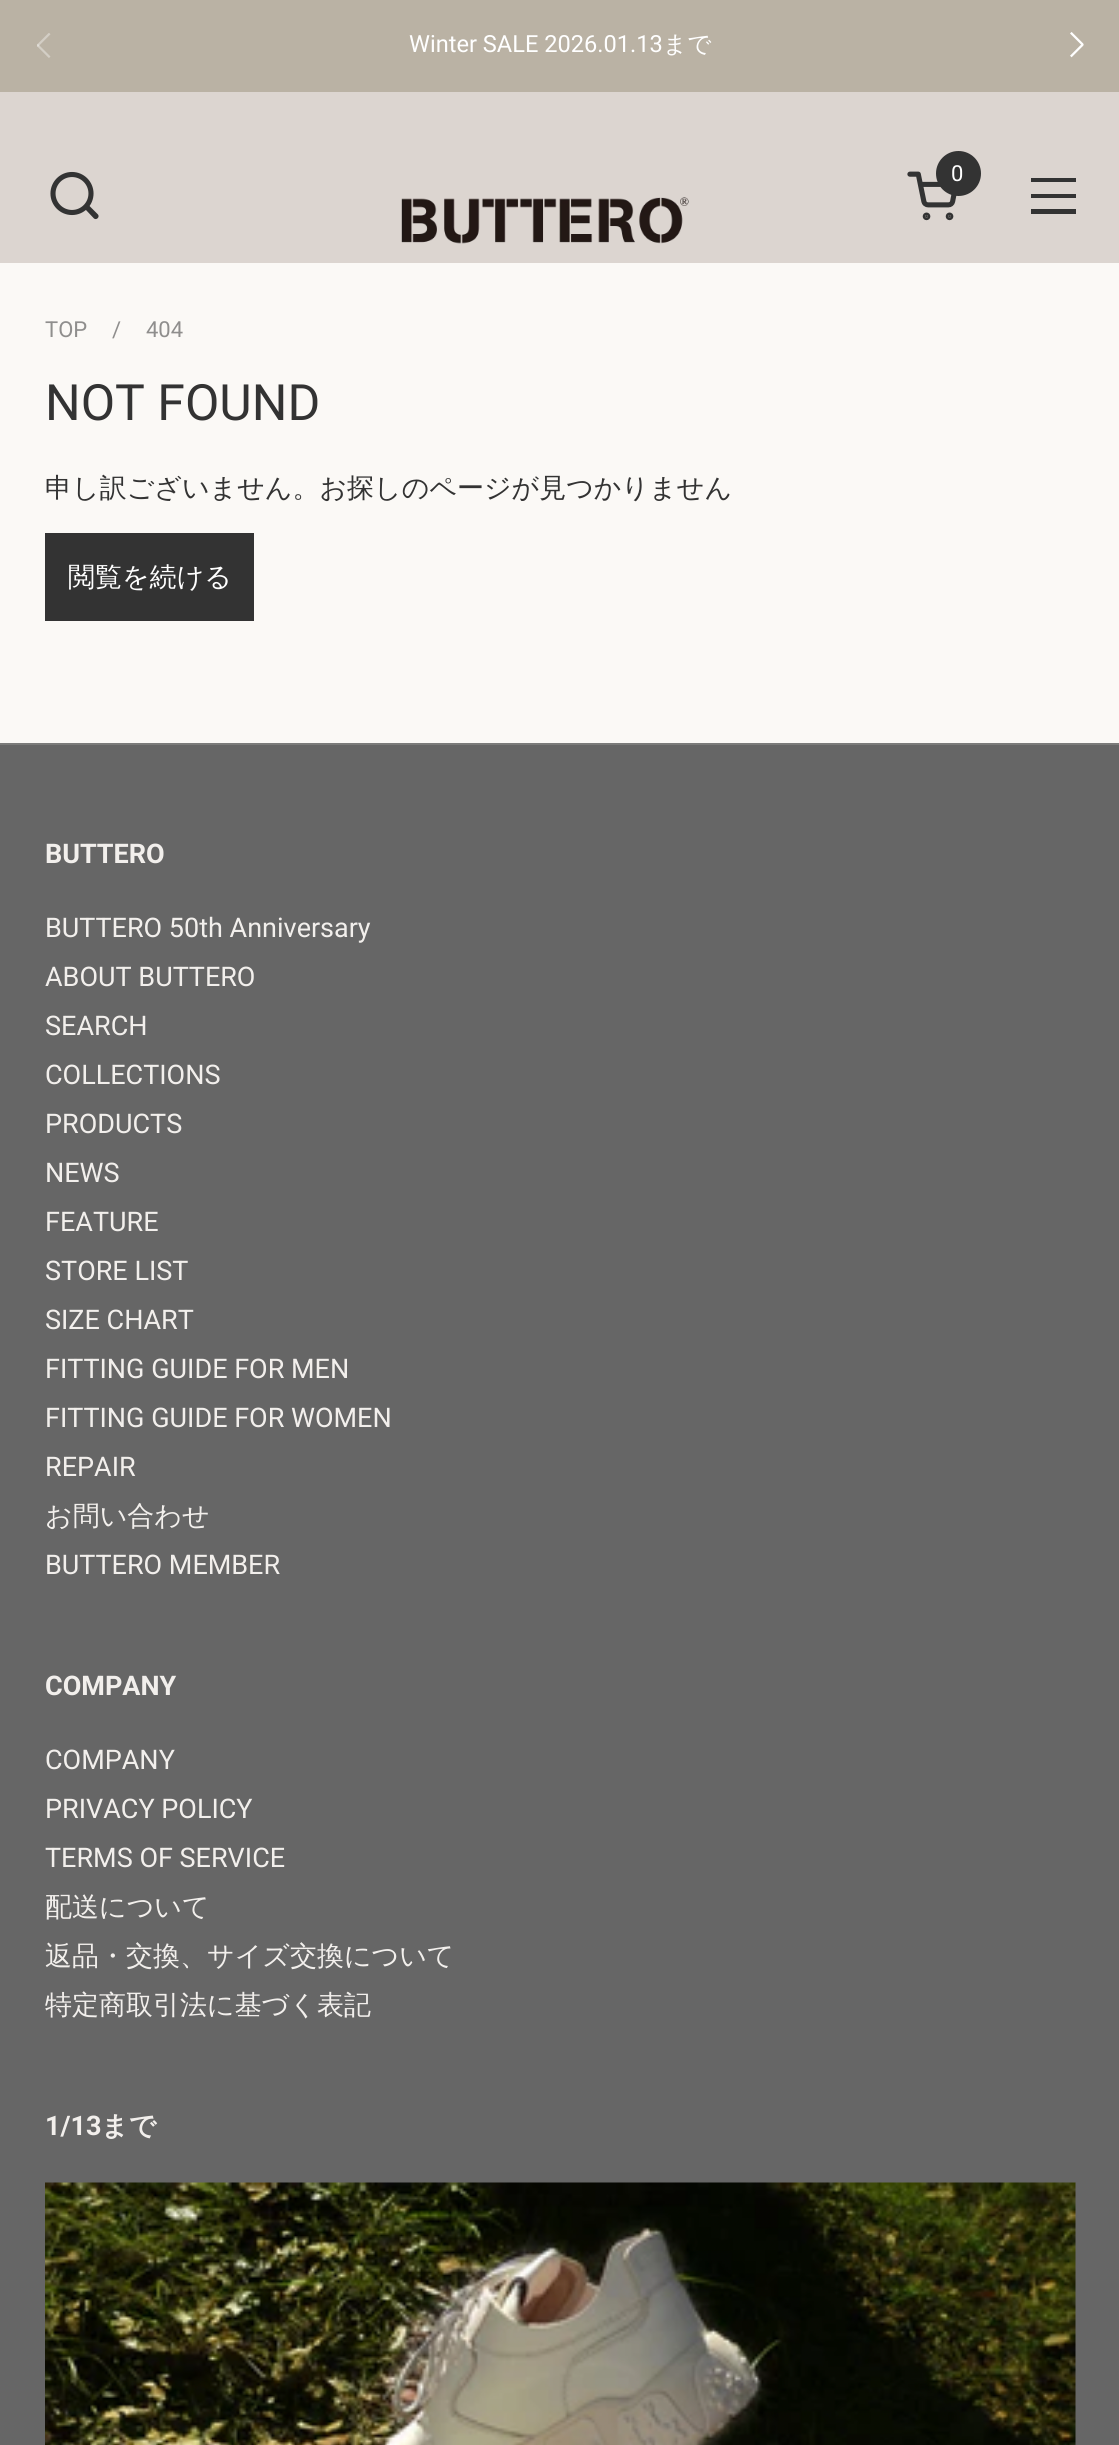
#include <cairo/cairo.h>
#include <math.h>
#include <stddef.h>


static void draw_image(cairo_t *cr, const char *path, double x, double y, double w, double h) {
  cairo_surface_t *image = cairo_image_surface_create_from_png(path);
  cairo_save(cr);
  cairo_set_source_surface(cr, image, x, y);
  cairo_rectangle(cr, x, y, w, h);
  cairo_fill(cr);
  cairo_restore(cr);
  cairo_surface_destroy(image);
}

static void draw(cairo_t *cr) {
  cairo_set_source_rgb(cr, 251 / 255.0, 249 / 255.0, 246 / 255.0);
  cairo_paint(cr);
  cairo_set_source_rgb(cr, 186 / 255.0, 178 / 255.0, 164 / 255.0);
  cairo_rectangle(cr, 0, 0, 1119, 92);
  cairo_fill(cr);
  draw_image(cr, "images/1.png", 37, 33, 14, 25);
  draw_image(cr, "images/2.png", 1070, 32, 14, 26);
  cairo_set_source_rgb(cr, 220 / 255.0, 213 / 255.0, 208 / 255.0);
  cairo_rectangle(cr, 0, 92, 1119, 171);
  cairo_fill(cr);
  cairo_arc(cr, 72, 193.5, 19, 0, 2 * M_PI);
  cairo_set_source_rgb(cr, 51 / 255.0, 51 / 255.0, 51 / 255.0);
  cairo_set_line_width(cr, 5.1);
  cairo_stroke(cr);
  cairo_new_path(cr);
  cairo_move_to(cr, 89, 205.5);
  cairo_line_to(cr, 87, 204);
  cairo_line_to(cr, 83.5, 207.5);
  cairo_line_to(cr, 85, 209);
  cairo_close_path(cr);
  cairo_move_to(cr, 94, 218.5);
  cairo_curve_to(cr, 96.5, 220.5, 100, 217, 98, 214.5);
  cairo_close_path(cr);
  cairo_move_to(cr, 85, 209);
  cairo_line_to(cr, 94, 218.5);
  cairo_line_to(cr, 98, 214.5);
  cairo_line_to(cr, 89, 205.5);
  cairo_close_path(cr);
  cairo_fill(cr);
  draw_image(cr, "images/3.png", 401, 197, 288, 47);
  cairo_arc(cr, 958.5, 173.5, 22.5, 0, 2 * M_PI);
  cairo_fill(cr);
  cairo_rectangle(cr, 1031, 178, 45, 4);
  cairo_fill(cr);
  cairo_rectangle(cr, 1031, 194, 45, 4);
  cairo_fill(cr);
  cairo_rectangle(cr, 1031, 209, 45, 5);
  cairo_fill(cr);
  cairo_rectangle(cr, 45, 533, 209, 88);
  cairo_fill(cr);
  cairo_set_source_rgb(cr, 102 / 255.0, 102 / 255.0, 102 / 255.0);
  cairo_rectangle(cr, 0, 745, 1119, 1700);
  cairo_fill(cr);
  cairo_set_source_rgb(cr, 123 / 255.0, 123 / 255.0, 122 / 255.0);
  cairo_rectangle(cr, 0, 743, 1119, 2);
  cairo_fill(cr);
  draw_image(cr, "images/5.png", 45, 2182, 1031, 263);
  cairo_select_font_face(cr, "Roboto", CAIRO_FONT_SLANT_NORMAL, CAIRO_FONT_WEIGHT_NORMAL);
  cairo_set_font_size(cr, 23.6);
  cairo_set_source_rgb(cr, 1, 1, 1);
  cairo_move_to(cr, 409, 52);
  cairo_show_text(cr, "Winter SALE 2026.01.13");
  cairo_select_font_face(cr, "WenQuanYi Zen Hei Medium", CAIRO_FONT_SLANT_NORMAL, CAIRO_FONT_WEIGHT_NORMAL);
  cairo_move_to(cr, 663, 52);
  cairo_show_text(cr, "まで");
  cairo_select_font_face(cr, "Roboto", CAIRO_FONT_SLANT_NORMAL, CAIRO_FONT_WEIGHT_NORMAL);
  cairo_set_font_size(cr, 22);
  cairo_move_to(cr, 951, 181);
  cairo_show_text(cr, "0");
  draw_image(cr, "images/4.png", 907, 171, 50, 50);
  cairo_set_source_rgb(cr, 143 / 255.0, 142 / 255.0, 141 / 255.0);
  cairo_move_to(cr, 45, 337);
  cairo_show_text(cr, "TOP");
  cairo_move_to(cr, 112, 337);
  cairo_show_text(cr, "/");
  cairo_move_to(cr, 146, 337);
  cairo_show_text(cr, "404");
  cairo_set_font_size(cr, 50);
  cairo_set_source_rgb(cr, 51 / 255.0, 51 / 255.0, 51 / 255.0);
  cairo_move_to(cr, 45, 420);
  cairo_show_text(cr, "NOT FOUND");
  cairo_select_font_face(cr, "WenQuanYi Zen Hei Medium", CAIRO_FONT_SLANT_NORMAL, CAIRO_FONT_WEIGHT_NORMAL);
  cairo_set_font_size(cr, 27);
  cairo_move_to(cr, 45, 497);
  cairo_show_text(cr, "申し訳ございません。お探しのページが見つかりません");
  cairo_set_source_rgb(cr, 1, 1, 1);
  cairo_move_to(cr, 68, 586);
  cairo_show_text(cr, "閲覧を続ける");
  cairo_select_font_face(cr, "Roboto", CAIRO_FONT_SLANT_NORMAL, CAIRO_FONT_WEIGHT_BOLD);
  cairo_set_source_rgb(cr, 242 / 255.0, 239 / 255.0, 236 / 255.0);
  cairo_move_to(cr, 45, 863);
  cairo_show_text(cr, "BUTTERO");
  cairo_select_font_face(cr, "Roboto", CAIRO_FONT_SLANT_NORMAL, CAIRO_FONT_WEIGHT_NORMAL);
  cairo_move_to(cr, 45, 937);
  cairo_show_text(cr, "BUTTERO 50th Anniversary");
  cairo_move_to(cr, 45, 986);
  cairo_show_text(cr, "ABOUT BUTTERO");
  cairo_move_to(cr, 45, 1035);
  cairo_show_text(cr, "SEARCH");
  cairo_move_to(cr, 45, 1084);
  cairo_show_text(cr, "COLLECTIONS");
  cairo_move_to(cr, 45, 1133);
  cairo_show_text(cr, "PRODUCTS");
  cairo_move_to(cr, 45, 1182);
  cairo_show_text(cr, "NEWS");
  cairo_move_to(cr, 45, 1231);
  cairo_show_text(cr, "FEATURE");
  cairo_move_to(cr, 45, 1280);
  cairo_show_text(cr, "STORE LIST");
  cairo_move_to(cr, 45, 1329);
  cairo_show_text(cr, "SIZE CHART");
  cairo_move_to(cr, 45, 1378);
  cairo_show_text(cr, "FITTING GUIDE FOR MEN");
  cairo_move_to(cr, 45, 1427);
  cairo_show_text(cr, "FITTING GUIDE FOR WOMEN");
  cairo_move_to(cr, 45, 1476);
  cairo_show_text(cr, "REPAIR");
  cairo_select_font_face(cr, "WenQuanYi Zen Hei Medium", CAIRO_FONT_SLANT_NORMAL, CAIRO_FONT_WEIGHT_NORMAL);
  cairo_move_to(cr, 45, 1525);
  cairo_show_text(cr, "お問い合わせ");
  cairo_select_font_face(cr, "Roboto", CAIRO_FONT_SLANT_NORMAL, CAIRO_FONT_WEIGHT_NORMAL);
  cairo_move_to(cr, 45, 1574);
  cairo_show_text(cr, "BUTTERO MEMBER");
  cairo_select_font_face(cr, "Roboto", CAIRO_FONT_SLANT_NORMAL, CAIRO_FONT_WEIGHT_BOLD);
  cairo_move_to(cr, 45, 1695);
  cairo_show_text(cr, "COMPANY");
  cairo_select_font_face(cr, "Roboto", CAIRO_FONT_SLANT_NORMAL, CAIRO_FONT_WEIGHT_NORMAL);
  cairo_move_to(cr, 45, 1769);
  cairo_show_text(cr, "COMPANY");
  cairo_move_to(cr, 45, 1818);
  cairo_show_text(cr, "PRIVACY POLICY");
  cairo_move_to(cr, 45, 1867);
  cairo_show_text(cr, "TERMS OF SERVICE");
  cairo_select_font_face(cr, "WenQuanYi Zen Hei Medium", CAIRO_FONT_SLANT_NORMAL, CAIRO_FONT_WEIGHT_NORMAL);
  cairo_move_to(cr, 45, 1916);
  cairo_show_text(cr, "配送について");
  cairo_move_to(cr, 45, 1965);
  cairo_show_text(cr, "返品・交換、サイズ交換について");
  cairo_move_to(cr, 45, 2014);
  cairo_show_text(cr, "特定商取引法に基づく表記");
  cairo_select_font_face(cr, "Roboto", CAIRO_FONT_SLANT_NORMAL, CAIRO_FONT_WEIGHT_BOLD);
  cairo_move_to(cr, 45, 2135);
  cairo_show_text(cr, "1/13");
  cairo_select_font_face(cr, "WenQuanYi Zen Hei", CAIRO_FONT_SLANT_NORMAL, CAIRO_FONT_WEIGHT_BOLD);
  cairo_move_to(cr, 101, 2135);
  cairo_show_text(cr, "まで");
}

int main(void) {
  cairo_surface_t *surface = cairo_image_surface_create(CAIRO_FORMAT_RGB24, 1119, 2445);
  cairo_t *cr = cairo_create(surface);
  cairo_font_options_t *options = cairo_font_options_create();
  cairo_font_options_set_hint_metrics(options, CAIRO_HINT_METRICS_OFF);
  cairo_font_options_set_hint_style(options, CAIRO_HINT_STYLE_NONE);
  cairo_set_font_options(cr, options);
  cairo_set_miter_limit(cr, 4);
  draw(cr);
  cairo_surface_write_to_png(surface, "out.png");
  cairo_font_options_destroy(options);
  cairo_destroy(cr);
  cairo_surface_destroy(surface);
  return 0;
}
